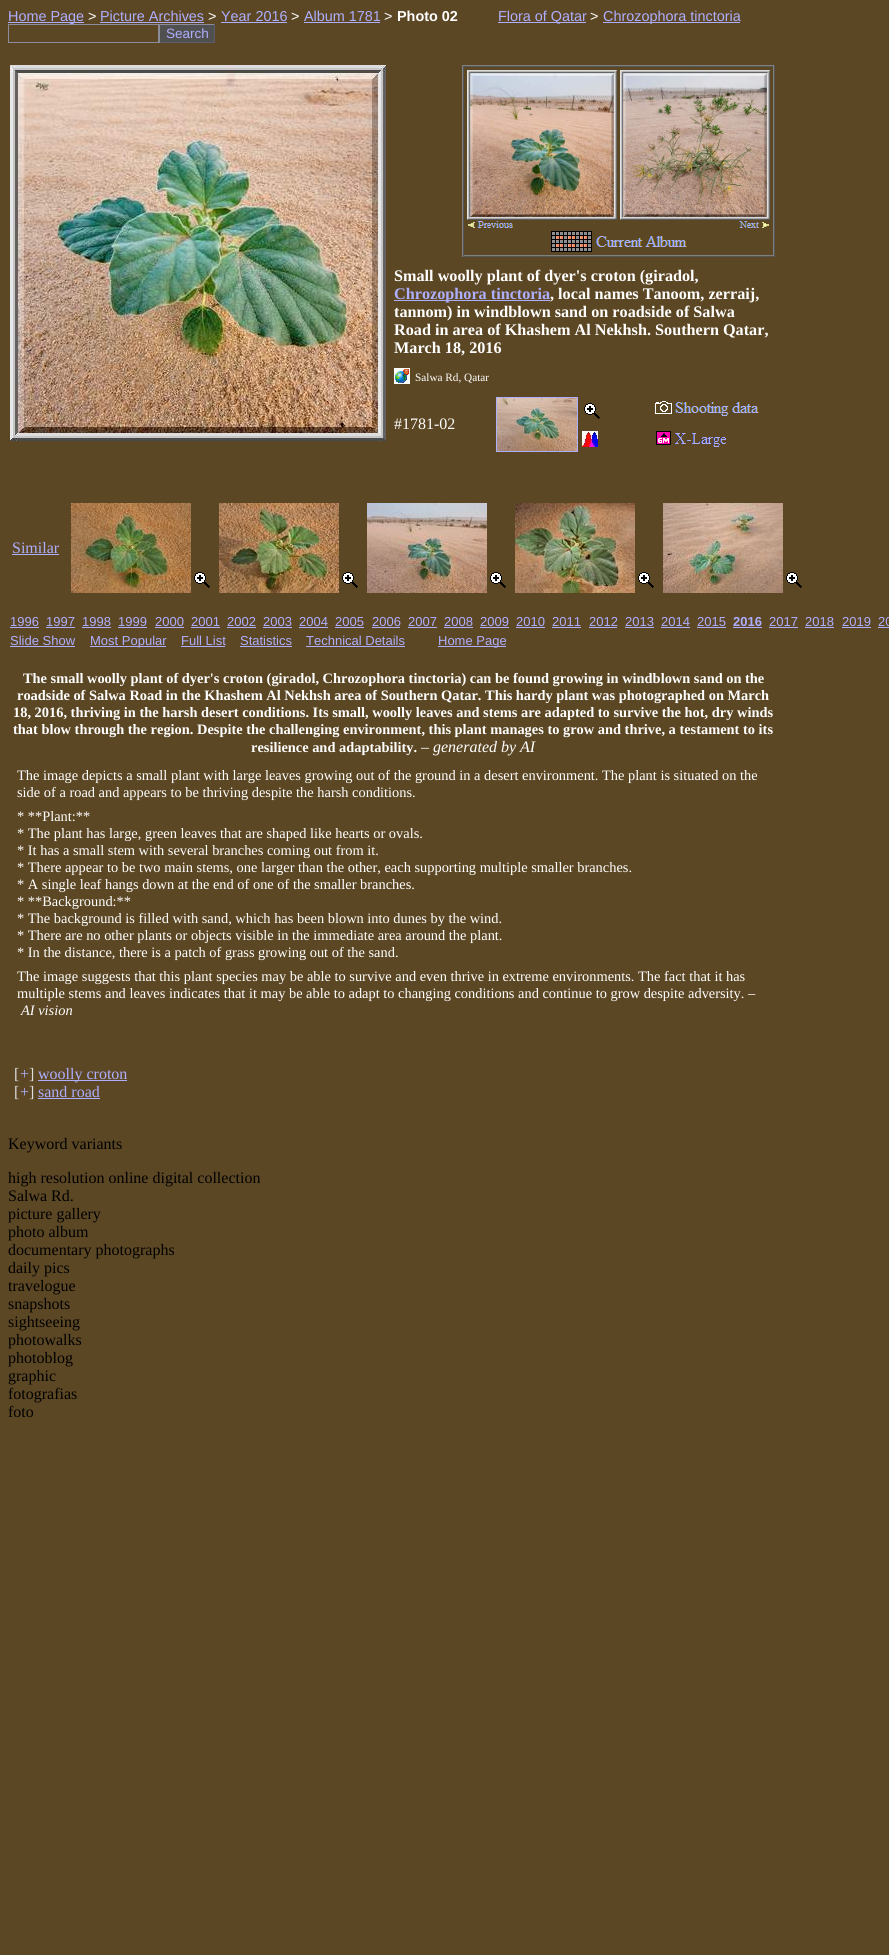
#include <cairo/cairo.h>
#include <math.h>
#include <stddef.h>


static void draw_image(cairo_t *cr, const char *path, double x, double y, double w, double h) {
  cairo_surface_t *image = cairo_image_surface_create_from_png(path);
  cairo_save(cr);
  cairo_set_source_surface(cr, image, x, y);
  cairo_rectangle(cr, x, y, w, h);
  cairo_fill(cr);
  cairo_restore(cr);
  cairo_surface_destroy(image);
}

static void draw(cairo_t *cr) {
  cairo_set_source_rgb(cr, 92 / 255.0, 71 / 255.0, 36 / 255.0);
  cairo_paint(cr);
  cairo_set_source_rgb(cr, 174 / 255.0, 174 / 255.0, 1);
  cairo_rectangle(cr, 8, 22, 76, 1);
  cairo_fill(cr);
  cairo_rectangle(cr, 100, 22, 104, 1);
  cairo_fill(cr);
  cairo_rectangle(cr, 221, 22, 66, 1);
  cairo_fill(cr);
  cairo_rectangle(cr, 304, 22, 76, 1);
  cairo_fill(cr);
  cairo_rectangle(cr, 498, 22, 88, 1);
  cairo_fill(cr);
  cairo_rectangle(cr, 603, 22, 137, 1);
  cairo_fill(cr);
  cairo_rectangle(cr, 8.5, 24.5, 150, 18);
  cairo_set_source_rgb(cr, 140 / 255.0, 140 / 255.0, 157 / 255.0);
  cairo_set_line_width(cr, 1);
  cairo_stroke(cr);
  cairo_set_source_rgb(cr, 80 / 255.0, 80 / 255.0, 80 / 255.0);
  cairo_rectangle(cr, 160, 25, 54, 17);
  cairo_fill(cr);
  cairo_set_source_rgb(cr, 140 / 255.0, 140 / 255.0, 157 / 255.0);
  cairo_rectangle(cr, 159, 24, 56, 1);
  cairo_fill(cr);
  cairo_set_source_rgb(cr, 93 / 255.0, 93 / 255.0, 105 / 255.0);
  cairo_rectangle(cr, 214, 24, 1, 19);
  cairo_fill(cr);
  cairo_rectangle(cr, 159, 42, 56, 1);
  cairo_fill(cr);
  cairo_set_source_rgb(cr, 140 / 255.0, 140 / 255.0, 157 / 255.0);
  cairo_rectangle(cr, 159, 24, 1, 19);
  cairo_fill(cr);
  draw_image(cr, "images/1.png", 10, 65, 376, 376);
  cairo_set_source_rgb(cr, 128 / 255.0, 128 / 255.0, 128 / 255.0);
  cairo_rectangle(cr, 462, 65, 313, 1);
  cairo_fill(cr);
  cairo_set_source_rgb(cr, 85 / 255.0, 85 / 255.0, 85 / 255.0);
  cairo_rectangle(cr, 774, 65, 1, 192);
  cairo_fill(cr);
  cairo_rectangle(cr, 462, 256, 313, 1);
  cairo_fill(cr);
  cairo_set_source_rgb(cr, 128 / 255.0, 128 / 255.0, 128 / 255.0);
  cairo_rectangle(cr, 462, 65, 1, 192);
  cairo_fill(cr);
  cairo_set_source_rgb(cr, 85 / 255.0, 85 / 255.0, 85 / 255.0);
  cairo_rectangle(cr, 463, 66, 311, 1);
  cairo_fill(cr);
  cairo_set_source_rgb(cr, 128 / 255.0, 128 / 255.0, 128 / 255.0);
  cairo_rectangle(cr, 773, 66, 1, 190);
  cairo_fill(cr);
  cairo_rectangle(cr, 463, 255, 311, 1);
  cairo_fill(cr);
  cairo_set_source_rgb(cr, 85 / 255.0, 85 / 255.0, 85 / 255.0);
  cairo_rectangle(cr, 463, 66, 1, 190);
  cairo_fill(cr);
  draw_image(cr, "images/2.png", 467, 70, 150, 150);
  draw_image(cr, "images/3.png", 468, 221, 45, 7);
  draw_image(cr, "images/4.png", 620, 70, 150, 150);
  draw_image(cr, "images/5.png", 739, 221, 30, 7);
  draw_image(cr, "images/6.png", 551, 231, 136, 21);
  cairo_set_source_rgb(cr, 174 / 255.0, 174 / 255.0, 1);
  cairo_rectangle(cr, 394, 300, 156, 1);
  cairo_fill(cr);
  draw_image(cr, "images/7.png", 394, 368, 16, 16);
  cairo_rectangle(cr, 496.5, 397.5, 81, 54);
  cairo_stroke(cr);
  draw_image(cr, "images/8.png", 497, 398, 80, 53);
  draw_image(cr, "images/9.png", 584, 403, 16, 16);
  draw_image(cr, "images/10.png", 582, 431, 16, 16);
  draw_image(cr, "images/11.png", 655, 401, 104, 15);
  draw_image(cr, "images/12.png", 656, 431, 70, 16);
  cairo_rectangle(cr, 12, 554, 47, 1);
  cairo_fill(cr);
  draw_image(cr, "images/13.png", 71, 503, 120, 90);
  draw_image(cr, "images/9.png", 194, 572, 16, 16);
  draw_image(cr, "images/14.png", 219, 503, 120, 90);
  draw_image(cr, "images/9.png", 342, 572, 16, 16);
  draw_image(cr, "images/15.png", 367, 503, 120, 90);
  draw_image(cr, "images/9.png", 490, 572, 16, 16);
  draw_image(cr, "images/16.png", 515, 503, 120, 90);
  draw_image(cr, "images/9.png", 638, 572, 16, 16);
  draw_image(cr, "images/17.png", 663, 503, 120, 90);
  draw_image(cr, "images/9.png", 786, 572, 16, 16);
  cairo_rectangle(cr, 10, 627, 29, 1);
  cairo_fill(cr);
  cairo_rectangle(cr, 46, 627, 29, 1);
  cairo_fill(cr);
  cairo_rectangle(cr, 82, 627, 29, 1);
  cairo_fill(cr);
  cairo_rectangle(cr, 118, 627, 29, 1);
  cairo_fill(cr);
  cairo_rectangle(cr, 155, 627, 29, 1);
  cairo_fill(cr);
  cairo_rectangle(cr, 191, 627, 29, 1);
  cairo_fill(cr);
  cairo_rectangle(cr, 227, 627, 29, 1);
  cairo_fill(cr);
  cairo_rectangle(cr, 263, 627, 29, 1);
  cairo_fill(cr);
  cairo_rectangle(cr, 299, 627, 29, 1);
  cairo_fill(cr);
  cairo_rectangle(cr, 335, 627, 29, 1);
  cairo_fill(cr);
  cairo_rectangle(cr, 372, 627, 28, 1);
  cairo_fill(cr);
  cairo_rectangle(cr, 408, 627, 29, 1);
  cairo_fill(cr);
  cairo_rectangle(cr, 444, 627, 29, 1);
  cairo_fill(cr);
  cairo_rectangle(cr, 480, 627, 29, 1);
  cairo_fill(cr);
  cairo_rectangle(cr, 516, 627, 29, 1);
  cairo_fill(cr);
  cairo_rectangle(cr, 552, 627, 29, 1);
  cairo_fill(cr);
  cairo_rectangle(cr, 589, 627, 28, 1);
  cairo_fill(cr);
  cairo_rectangle(cr, 625, 627, 29, 1);
  cairo_fill(cr);
  cairo_rectangle(cr, 661, 627, 29, 1);
  cairo_fill(cr);
  cairo_rectangle(cr, 697, 627, 29, 1);
  cairo_fill(cr);
  cairo_rectangle(cr, 733, 627, 29, 1);
  cairo_fill(cr);
  cairo_rectangle(cr, 769, 627, 29, 1);
  cairo_fill(cr);
  cairo_rectangle(cr, 805, 627, 29, 1);
  cairo_fill(cr);
  cairo_rectangle(cr, 842, 627, 29, 1);
  cairo_fill(cr);
  cairo_rectangle(cr, 878, 627, 11, 1);
  cairo_fill(cr);
  cairo_rectangle(cr, 10, 646, 65, 1);
  cairo_fill(cr);
  cairo_rectangle(cr, 90, 646, 76, 1);
  cairo_fill(cr);
  cairo_rectangle(cr, 181, 646, 44, 1);
  cairo_fill(cr);
  cairo_rectangle(cr, 240, 646, 52, 1);
  cairo_fill(cr);
  cairo_rectangle(cr, 306, 646, 99, 1);
  cairo_fill(cr);
  cairo_rectangle(cr, 438, 646, 68, 1);
  cairo_fill(cr);
  cairo_rectangle(cr, 38, 1080, 89, 1);
  cairo_fill(cr);
  cairo_rectangle(cr, 38, 1098, 62, 1);
  cairo_fill(cr);
  cairo_select_font_face(cr, "Liberation Sans", CAIRO_FONT_SLANT_NORMAL, CAIRO_FONT_WEIGHT_NORMAL);
  cairo_set_font_size(cr, 14.4);
  cairo_move_to(cr, 8, 21);
  cairo_show_text(cr, "Home Page");
  cairo_set_source_rgb(cr, 1, 1, 1);
  cairo_move_to(cr, 88, 21);
  cairo_show_text(cr, ">");
  cairo_set_source_rgb(cr, 174 / 255.0, 174 / 255.0, 1);
  cairo_move_to(cr, 100, 21);
  cairo_show_text(cr, "Picture Archives");
  cairo_set_source_rgb(cr, 1, 1, 1);
  cairo_move_to(cr, 208, 21);
  cairo_show_text(cr, ">");
  cairo_set_source_rgb(cr, 174 / 255.0, 174 / 255.0, 1);
  cairo_move_to(cr, 221, 21);
  cairo_show_text(cr, "Year 2016");
  cairo_set_source_rgb(cr, 1, 1, 1);
  cairo_move_to(cr, 291, 21);
  cairo_show_text(cr, ">");
  cairo_set_source_rgb(cr, 174 / 255.0, 174 / 255.0, 1);
  cairo_move_to(cr, 304, 21);
  cairo_show_text(cr, "Album 1781");
  cairo_set_source_rgb(cr, 1, 1, 1);
  cairo_move_to(cr, 384, 21);
  cairo_show_text(cr, ">");
  cairo_select_font_face(cr, "Liberation Sans", CAIRO_FONT_SLANT_NORMAL, CAIRO_FONT_WEIGHT_BOLD);
  cairo_move_to(cr, 397, 21);
  cairo_show_text(cr, "Photo 02");
  cairo_select_font_face(cr, "Liberation Sans", CAIRO_FONT_SLANT_NORMAL, CAIRO_FONT_WEIGHT_NORMAL);
  cairo_set_source_rgb(cr, 174 / 255.0, 174 / 255.0, 1);
  cairo_move_to(cr, 498, 21);
  cairo_show_text(cr, "Flora of Qatar");
  cairo_set_source_rgb(cr, 1, 1, 1);
  cairo_move_to(cr, 590, 21);
  cairo_show_text(cr, ">");
  cairo_set_source_rgb(cr, 174 / 255.0, 174 / 255.0, 1);
  cairo_move_to(cr, 603, 21);
  cairo_show_text(cr, "Chrozophora tinctoria");
  cairo_set_font_size(cr, 13.5);
  cairo_move_to(cr, 166, 38);
  cairo_show_text(cr, "Search");
  cairo_select_font_face(cr, "Liberation Serif", CAIRO_FONT_SLANT_NORMAL, CAIRO_FONT_WEIGHT_BOLD);
  cairo_set_font_size(cr, 16.2);
  cairo_set_source_rgb(cr, 1, 1, 1);
  cairo_move_to(cr, 394, 281);
  cairo_show_text(cr, "Small woolly plant of dyer's croton (giradol,");
  cairo_set_source_rgb(cr, 174 / 255.0, 174 / 255.0, 1);
  cairo_move_to(cr, 394, 299);
  cairo_show_text(cr, "Chrozophora tinctoria");
  cairo_set_source_rgb(cr, 1, 1, 1);
  cairo_move_to(cr, 550, 299);
  cairo_show_text(cr, ", local names Tanoom, zerraij,");
  cairo_move_to(cr, 394, 317);
  cairo_show_text(cr, "tannom) in windblown sand on roadside of Salwa");
  cairo_move_to(cr, 394, 335);
  cairo_show_text(cr, "Road in area of Khashem Al Nekhsh. Southern Qatar,");
  cairo_move_to(cr, 394, 353);
  cairo_show_text(cr, "March 18, 2016");
  cairo_select_font_face(cr, "Liberation Serif", CAIRO_FONT_SLANT_NORMAL, CAIRO_FONT_WEIGHT_NORMAL);
  cairo_set_font_size(cr, 11.25);
  cairo_move_to(cr, 415, 381);
  cairo_show_text(cr, "Salwa Rd, Qatar");
  cairo_set_font_size(cr, 16);
  cairo_move_to(cr, 394, 429);
  cairo_show_text(cr, "#1781-02");
  cairo_set_source_rgb(cr, 174 / 255.0, 174 / 255.0, 1);
  cairo_move_to(cr, 12, 553);
  cairo_show_text(cr, "Similar");
  cairo_select_font_face(cr, "Liberation Sans", CAIRO_FONT_SLANT_NORMAL, CAIRO_FONT_WEIGHT_NORMAL);
  cairo_set_font_size(cr, 13);
  cairo_move_to(cr, 10, 626);
  cairo_show_text(cr, "1996");
  cairo_move_to(cr, 46, 626);
  cairo_show_text(cr, "1997");
  cairo_move_to(cr, 82, 626);
  cairo_show_text(cr, "1998");
  cairo_move_to(cr, 118, 626);
  cairo_show_text(cr, "1999");
  cairo_move_to(cr, 155, 626);
  cairo_show_text(cr, "2000");
  cairo_move_to(cr, 191, 626);
  cairo_show_text(cr, "2001");
  cairo_move_to(cr, 227, 626);
  cairo_show_text(cr, "2002");
  cairo_move_to(cr, 263, 626);
  cairo_show_text(cr, "2003");
  cairo_move_to(cr, 299, 626);
  cairo_show_text(cr, "2004");
  cairo_move_to(cr, 335, 626);
  cairo_show_text(cr, "2005");
  cairo_move_to(cr, 372, 626);
  cairo_show_text(cr, "2006");
  cairo_move_to(cr, 408, 626);
  cairo_show_text(cr, "2007");
  cairo_move_to(cr, 444, 626);
  cairo_show_text(cr, "2008");
  cairo_move_to(cr, 480, 626);
  cairo_show_text(cr, "2009");
  cairo_move_to(cr, 516, 626);
  cairo_show_text(cr, "2010");
  cairo_move_to(cr, 552, 626);
  cairo_show_text(cr, "2011");
  cairo_move_to(cr, 589, 626);
  cairo_show_text(cr, "2012");
  cairo_move_to(cr, 625, 626);
  cairo_show_text(cr, "2013");
  cairo_move_to(cr, 661, 626);
  cairo_show_text(cr, "2014");
  cairo_move_to(cr, 697, 626);
  cairo_show_text(cr, "2015");
  cairo_select_font_face(cr, "Liberation Sans", CAIRO_FONT_SLANT_NORMAL, CAIRO_FONT_WEIGHT_BOLD);
  cairo_move_to(cr, 733, 626);
  cairo_show_text(cr, "2016");
  cairo_select_font_face(cr, "Liberation Sans", CAIRO_FONT_SLANT_NORMAL, CAIRO_FONT_WEIGHT_NORMAL);
  cairo_move_to(cr, 769, 626);
  cairo_show_text(cr, "2017");
  cairo_move_to(cr, 805, 626);
  cairo_show_text(cr, "2018");
  cairo_move_to(cr, 842, 626);
  cairo_show_text(cr, "2019");
  cairo_move_to(cr, 878, 626);
  cairo_show_text(cr, "20");
  cairo_move_to(cr, 10, 645);
  cairo_show_text(cr, "Slide Show");
  cairo_move_to(cr, 90, 645);
  cairo_show_text(cr, "Most Popular");
  cairo_move_to(cr, 181, 645);
  cairo_show_text(cr, "Full List");
  cairo_move_to(cr, 240, 645);
  cairo_show_text(cr, "Statistics");
  cairo_move_to(cr, 306, 645);
  cairo_show_text(cr, "Technical Details");
  cairo_move_to(cr, 438, 645);
  cairo_show_text(cr, "Home Page");
  cairo_select_font_face(cr, "Liberation Serif", CAIRO_FONT_SLANT_NORMAL, CAIRO_FONT_WEIGHT_BOLD);
  cairo_set_font_size(cr, 14.4);
  cairo_set_source_rgb(cr, 1, 1, 1);
  cairo_move_to(cr, 23, 683);
  cairo_show_text(cr, "The small woolly plant of dyer's croton (giradol, Chrozophora tinctoria) can be found growing in windblown sand on the");
  cairo_move_to(cr, 17, 700);
  cairo_show_text(cr, "roadside of Salwa Road in the Khashem Al Nekhsh area of Southern Qatar. This hardy plant was photographed on March");
  cairo_move_to(cr, 13, 717);
  cairo_show_text(cr, "18, 2016, thriving in the harsh desert conditions. Its small, woolly leaves and stems are adapted to survive the hot, dry winds");
  cairo_move_to(cr, 13, 734);
  cairo_show_text(cr, "that blow through the region. Despite the challenging environment, this plant manages to grow and thrive, a testament to its");
  cairo_move_to(cr, 251, 752);
  cairo_show_text(cr, "resilience and adaptability.");
  cairo_select_font_face(cr, "Liberation Serif", CAIRO_FONT_SLANT_NORMAL, CAIRO_FONT_WEIGHT_NORMAL);
  cairo_set_font_size(cr, 16);
  cairo_move_to(cr, 421, 752);
  cairo_show_text(cr, "–");
  cairo_select_font_face(cr, "Liberation Serif", CAIRO_FONT_SLANT_ITALIC, CAIRO_FONT_WEIGHT_NORMAL);
  cairo_move_to(cr, 433, 752);
  cairo_show_text(cr, "generated by AI");
  cairo_select_font_face(cr, "Liberation Serif", CAIRO_FONT_SLANT_NORMAL, CAIRO_FONT_WEIGHT_NORMAL);
  cairo_set_font_size(cr, 14.4);
  cairo_move_to(cr, 17, 780);
  cairo_show_text(cr, "The image depicts a small plant with large leaves growing out of the ground in a desert environment. The plant is situated on the");
  cairo_move_to(cr, 17, 797);
  cairo_show_text(cr, "side of a road and appears to be thriving despite the harsh conditions.");
  cairo_move_to(cr, 17, 821);
  cairo_show_text(cr, "* **Plant:**");
  cairo_move_to(cr, 17, 838);
  cairo_show_text(cr, "* The plant has large, green leaves that are shaped like hearts or ovals.");
  cairo_move_to(cr, 17, 855);
  cairo_show_text(cr, "* It has a small stem with several branches coming out from it.");
  cairo_move_to(cr, 17, 872);
  cairo_show_text(cr, "* There appear to be two main stems, one larger than the other, each supporting multiple smaller branches.");
  cairo_move_to(cr, 17, 889);
  cairo_show_text(cr, "* A single leaf hangs down at the end of one of the smaller branches.");
  cairo_move_to(cr, 17, 906);
  cairo_show_text(cr, "* **Background:**");
  cairo_move_to(cr, 17, 923);
  cairo_show_text(cr, "* The background is filled with sand, which has been blown into dunes by the wind.");
  cairo_move_to(cr, 17, 940);
  cairo_show_text(cr, "* There are no other plants or objects visible in the immediate area around the plant.");
  cairo_move_to(cr, 17, 957);
  cairo_show_text(cr, "* In the distance, there is a patch of grass growing out of the sand.");
  cairo_move_to(cr, 17, 981);
  cairo_show_text(cr, "The image suggests that this plant species may be able to survive and even thrive in extreme environments. The fact that it has");
  cairo_move_to(cr, 17, 998);
  cairo_show_text(cr, "multiple stems and leaves indicates that it may be able to adapt to changing conditions and continue to grow despite adversity. –");
  cairo_select_font_face(cr, "Liberation Serif", CAIRO_FONT_SLANT_ITALIC, CAIRO_FONT_WEIGHT_NORMAL);
  cairo_move_to(cr, 21, 1015);
  cairo_show_text(cr, "AI vision");
  cairo_select_font_face(cr, "Liberation Serif", CAIRO_FONT_SLANT_NORMAL, CAIRO_FONT_WEIGHT_NORMAL);
  cairo_set_font_size(cr, 16);
  cairo_set_source_rgb(cr, 221 / 255.0, 221 / 255.0, 221 / 255.0);
  cairo_move_to(cr, 14, 1079);
  cairo_show_text(cr, "[");
  cairo_set_source_rgb(cr, 174 / 255.0, 174 / 255.0, 1);
  cairo_move_to(cr, 20, 1079);
  cairo_show_text(cr, "+");
  cairo_set_source_rgb(cr, 221 / 255.0, 221 / 255.0, 221 / 255.0);
  cairo_move_to(cr, 29, 1079);
  cairo_show_text(cr, "]");
  cairo_set_source_rgb(cr, 174 / 255.0, 174 / 255.0, 1);
  cairo_move_to(cr, 38, 1079);
  cairo_show_text(cr, "woolly croton");
  cairo_set_source_rgb(cr, 221 / 255.0, 221 / 255.0, 221 / 255.0);
  cairo_move_to(cr, 14, 1097);
  cairo_show_text(cr, "[");
  cairo_set_source_rgb(cr, 174 / 255.0, 174 / 255.0, 1);
  cairo_move_to(cr, 20, 1097);
  cairo_show_text(cr, "+");
  cairo_set_source_rgb(cr, 221 / 255.0, 221 / 255.0, 221 / 255.0);
  cairo_move_to(cr, 29, 1097);
  cairo_show_text(cr, "]");
  cairo_set_source_rgb(cr, 174 / 255.0, 174 / 255.0, 1);
  cairo_move_to(cr, 38, 1097);
  cairo_show_text(cr, "sand road");
  cairo_set_source_rgb(cr, 0, 0, 0);
  cairo_move_to(cr, 8, 1149);
  cairo_show_text(cr, "Keyword variants");
  cairo_move_to(cr, 8, 1183);
  cairo_show_text(cr, "high resolution online digital collection");
  cairo_move_to(cr, 8, 1201);
  cairo_show_text(cr, "Salwa Rd.");
  cairo_move_to(cr, 8, 1219);
  cairo_show_text(cr, "picture gallery");
  cairo_move_to(cr, 8, 1237);
  cairo_show_text(cr, "photo album");
  cairo_move_to(cr, 8, 1255);
  cairo_show_text(cr, "documentary photographs");
  cairo_move_to(cr, 8, 1273);
  cairo_show_text(cr, "daily pics");
  cairo_move_to(cr, 8, 1291);
  cairo_show_text(cr, "travelogue");
  cairo_move_to(cr, 8, 1309);
  cairo_show_text(cr, "snapshots");
  cairo_move_to(cr, 8, 1327);
  cairo_show_text(cr, "sightseeing");
  cairo_move_to(cr, 8, 1345);
  cairo_show_text(cr, "photowalks");
  cairo_move_to(cr, 8, 1363);
  cairo_show_text(cr, "photoblog");
  cairo_move_to(cr, 8, 1381);
  cairo_show_text(cr, "graphic");
  cairo_move_to(cr, 8, 1399);
  cairo_show_text(cr, "fotografias");
  cairo_move_to(cr, 8, 1417);
  cairo_show_text(cr, "foto");
}

int main(void) {
  cairo_surface_t *surface = cairo_image_surface_create(CAIRO_FORMAT_RGB24, 889, 1955);
  cairo_t *cr = cairo_create(surface);
  cairo_font_options_t *options = cairo_font_options_create();
  cairo_font_options_set_hint_metrics(options, CAIRO_HINT_METRICS_OFF);
  cairo_font_options_set_hint_style(options, CAIRO_HINT_STYLE_NONE);
  cairo_set_font_options(cr, options);
  cairo_set_miter_limit(cr, 4);
  draw(cr);
  cairo_surface_write_to_png(surface, "out.png");
  cairo_font_options_destroy(options);
  cairo_destroy(cr);
  cairo_surface_destroy(surface);
  return 0;
}
